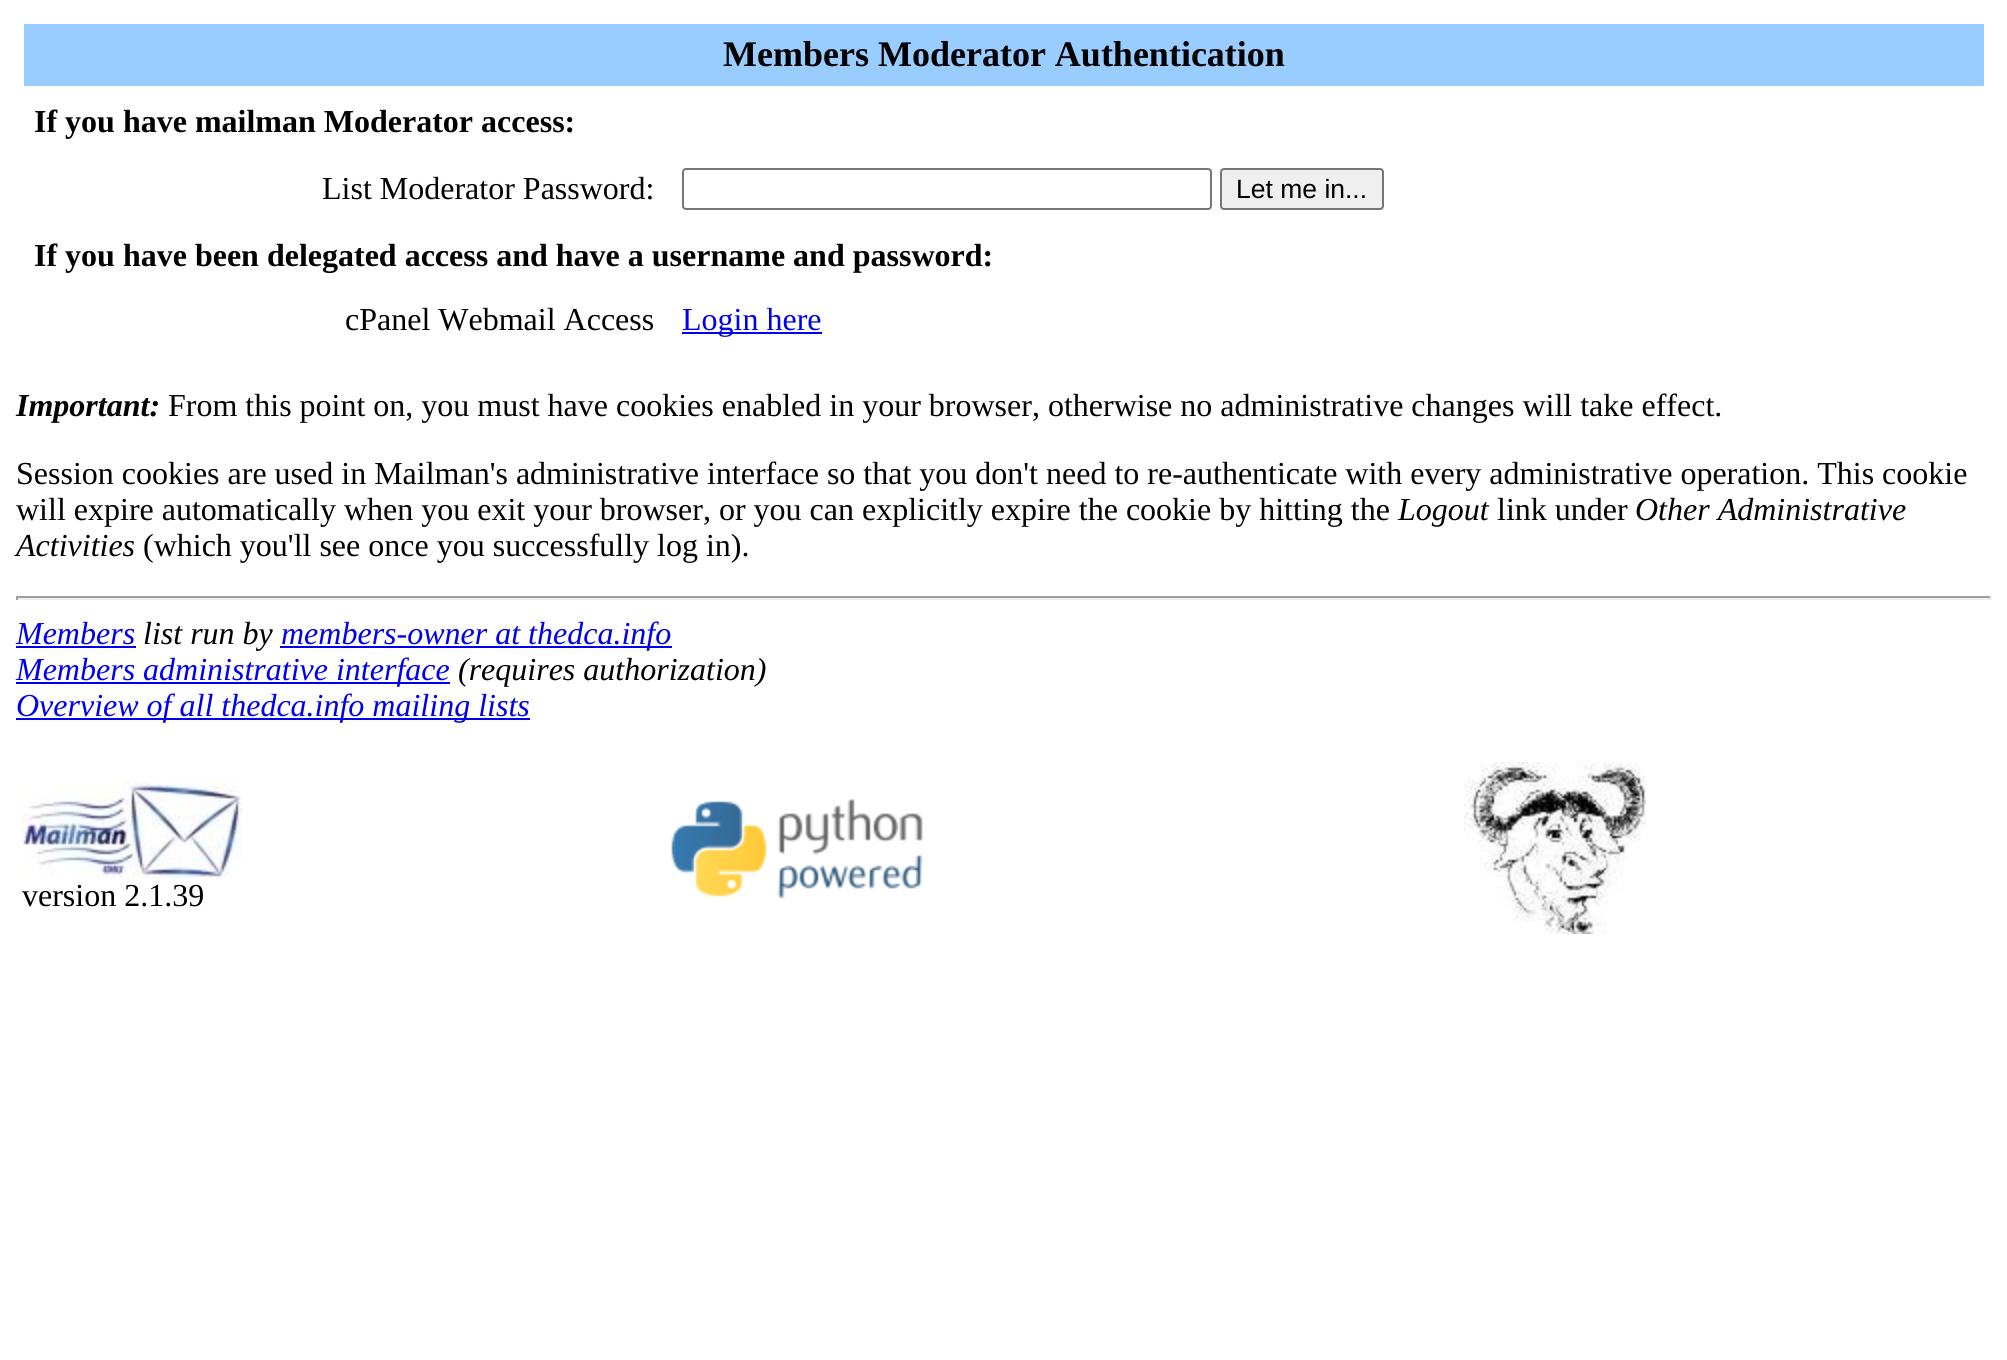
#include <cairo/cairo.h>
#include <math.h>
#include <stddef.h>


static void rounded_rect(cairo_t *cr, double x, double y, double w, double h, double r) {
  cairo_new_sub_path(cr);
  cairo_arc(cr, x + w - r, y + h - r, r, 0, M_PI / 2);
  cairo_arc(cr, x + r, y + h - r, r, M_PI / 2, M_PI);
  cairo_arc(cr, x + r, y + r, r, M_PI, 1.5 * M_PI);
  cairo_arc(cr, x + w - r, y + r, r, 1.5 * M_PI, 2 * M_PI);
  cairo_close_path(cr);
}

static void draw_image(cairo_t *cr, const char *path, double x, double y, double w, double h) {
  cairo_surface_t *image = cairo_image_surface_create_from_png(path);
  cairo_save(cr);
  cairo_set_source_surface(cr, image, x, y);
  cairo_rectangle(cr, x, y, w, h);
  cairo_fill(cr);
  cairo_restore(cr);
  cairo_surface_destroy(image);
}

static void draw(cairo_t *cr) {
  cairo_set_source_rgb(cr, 1, 1, 1);
  cairo_paint(cr);
  cairo_set_source_rgb(cr, 153 / 255.0, 204 / 255.0, 1);
  cairo_rectangle(cr, 24, 24, 1960, 62);
  cairo_fill(cr);
  rounded_rect(cr, 683, 169, 528, 40, 3);
  cairo_set_source_rgb(cr, 118 / 255.0, 118 / 255.0, 118 / 255.0);
  cairo_stroke(cr);
  cairo_set_source_rgb(cr, 239 / 255.0, 239 / 255.0, 239 / 255.0);
  rounded_rect(cr, 1221, 169, 162, 40, 3);
  cairo_fill_preserve(cr);
  cairo_set_source_rgb(cr, 118 / 255.0, 118 / 255.0, 118 / 255.0);
  cairo_stroke(cr);
  cairo_set_source_rgb(cr, 0, 0, 238 / 255.0);
  cairo_rectangle(cr, 682, 332, 140, 2);
  cairo_fill(cr);
  cairo_set_source_rgb(cr, 159 / 255.0, 159 / 255.0, 159 / 255.0);
  cairo_rectangle(cr, 16, 596, 1976, 2);
  cairo_fill(cr);
  cairo_set_source_rgb(cr, 238 / 255.0, 238 / 255.0, 238 / 255.0);
  cairo_rectangle(cr, 1990, 596, 2, 4);
  cairo_fill(cr);
  cairo_rectangle(cr, 16, 598, 1976, 2);
  cairo_fill(cr);
  cairo_set_source_rgb(cr, 159 / 255.0, 159 / 255.0, 159 / 255.0);
  cairo_rectangle(cr, 16, 596, 2, 4);
  cairo_fill(cr);
  cairo_set_source_rgb(cr, 0, 0, 238 / 255.0);
  cairo_rectangle(cr, 16, 646, 120, 2);
  cairo_fill(cr);
  cairo_rectangle(cr, 280, 646, 392, 2);
  cairo_fill(cr);
  cairo_rectangle(cr, 16, 682, 434, 2);
  cairo_fill(cr);
  cairo_rectangle(cr, 16, 718, 514, 2);
  cairo_fill(cr);
  draw_image(cr, "images/1.png", 22, 782, 220, 96);
  draw_image(cr, "images/2.png", 671, 797, 252, 102);
  draw_image(cr, "images/3.png", 1464, 762, 182, 172);
  cairo_select_font_face(cr, "Liberation Serif", CAIRO_FONT_SLANT_NORMAL, CAIRO_FONT_WEIGHT_BOLD);
  cairo_set_font_size(cr, 36);
  cairo_set_source_rgb(cr, 0, 0, 0);
  cairo_move_to(cr, 723, 66);
  cairo_show_text(cr, "Members Moderator Authentication");
  cairo_set_font_size(cr, 32);
  cairo_move_to(cr, 34, 132);
  cairo_show_text(cr, "If you have mailman Moderator access:");
  cairo_select_font_face(cr, "Liberation Serif", CAIRO_FONT_SLANT_NORMAL, CAIRO_FONT_WEIGHT_NORMAL);
  cairo_move_to(cr, 322, 199);
  cairo_show_text(cr, "List Moderator Password:");
  cairo_select_font_face(cr, "Liberation Sans", CAIRO_FONT_SLANT_NORMAL, CAIRO_FONT_WEIGHT_NORMAL);
  cairo_set_font_size(cr, 26.5);
  cairo_move_to(cr, 1236, 198);
  cairo_show_text(cr, "Let me in...");
  cairo_select_font_face(cr, "Liberation Serif", CAIRO_FONT_SLANT_NORMAL, CAIRO_FONT_WEIGHT_BOLD);
  cairo_set_font_size(cr, 32);
  cairo_move_to(cr, 34, 266);
  cairo_show_text(cr, "If you have been delegated access and have a username and password:");
  cairo_select_font_face(cr, "Liberation Serif", CAIRO_FONT_SLANT_NORMAL, CAIRO_FONT_WEIGHT_NORMAL);
  cairo_move_to(cr, 345, 330);
  cairo_show_text(cr, "cPanel Webmail Access");
  cairo_set_source_rgb(cr, 0, 0, 238 / 255.0);
  cairo_move_to(cr, 682, 330);
  cairo_show_text(cr, "Login here");
  cairo_select_font_face(cr, "Liberation Serif", CAIRO_FONT_SLANT_ITALIC, CAIRO_FONT_WEIGHT_BOLD);
  cairo_set_source_rgb(cr, 0, 0, 0);
  cairo_move_to(cr, 16, 416);
  cairo_show_text(cr, "Important:");
  cairo_select_font_face(cr, "Liberation Serif", CAIRO_FONT_SLANT_NORMAL, CAIRO_FONT_WEIGHT_NORMAL);
  cairo_move_to(cr, 168, 416);
  cairo_show_text(cr, "From this point on, you must have cookies enabled in your browser, otherwise no administrative changes will take effect.");
  cairo_move_to(cr, 16, 484);
  cairo_show_text(cr, "Session cookies are used in Mailman's administrative interface so that you don't need to re-authenticate with every administrative operation. This cookie");
  cairo_move_to(cr, 16, 520);
  cairo_show_text(cr, "will expire automatically when you exit your browser, or you can explicitly expire the cookie by hitting the");
  cairo_select_font_face(cr, "Liberation Serif", CAIRO_FONT_SLANT_ITALIC, CAIRO_FONT_WEIGHT_NORMAL);
  cairo_move_to(cr, 1398, 520);
  cairo_show_text(cr, "Logout");
  cairo_select_font_face(cr, "Liberation Serif", CAIRO_FONT_SLANT_NORMAL, CAIRO_FONT_WEIGHT_NORMAL);
  cairo_move_to(cr, 1497, 520);
  cairo_show_text(cr, "link under");
  cairo_select_font_face(cr, "Liberation Serif", CAIRO_FONT_SLANT_ITALIC, CAIRO_FONT_WEIGHT_NORMAL);
  cairo_move_to(cr, 1635, 520);
  cairo_show_text(cr, "Other Administrative");
  cairo_move_to(cr, 16, 556);
  cairo_show_text(cr, "Activities");
  cairo_select_font_face(cr, "Liberation Serif", CAIRO_FONT_SLANT_NORMAL, CAIRO_FONT_WEIGHT_NORMAL);
  cairo_move_to(cr, 143, 556);
  cairo_show_text(cr, "(which you'll see once you successfully log in).");
  cairo_select_font_face(cr, "Liberation Serif", CAIRO_FONT_SLANT_ITALIC, CAIRO_FONT_WEIGHT_NORMAL);
  cairo_set_source_rgb(cr, 0, 0, 238 / 255.0);
  cairo_move_to(cr, 16, 644);
  cairo_show_text(cr, "Members");
  cairo_set_source_rgb(cr, 0, 0, 0);
  cairo_move_to(cr, 143, 644);
  cairo_show_text(cr, "list run by");
  cairo_set_source_rgb(cr, 0, 0, 238 / 255.0);
  cairo_move_to(cr, 281, 644);
  cairo_show_text(cr, "members-owner at thedca.info");
  cairo_move_to(cr, 16, 680);
  cairo_show_text(cr, "Members administrative interface");
  cairo_set_source_rgb(cr, 0, 0, 0);
  cairo_move_to(cr, 458, 680);
  cairo_show_text(cr, "(requires authorization)");
  cairo_set_source_rgb(cr, 0, 0, 238 / 255.0);
  cairo_move_to(cr, 16, 716);
  cairo_show_text(cr, "Overview of all thedca.info mailing lists");
  cairo_select_font_face(cr, "Liberation Serif", CAIRO_FONT_SLANT_NORMAL, CAIRO_FONT_WEIGHT_NORMAL);
  cairo_set_source_rgb(cr, 0, 0, 0);
  cairo_move_to(cr, 22, 906);
  cairo_show_text(cr, "version 2.1.39");
}

int main(void) {
  cairo_surface_t *surface = cairo_image_surface_create(CAIRO_FORMAT_RGB24, 2007, 1360);
  cairo_t *cr = cairo_create(surface);
  cairo_font_options_t *options = cairo_font_options_create();
  cairo_font_options_set_hint_metrics(options, CAIRO_HINT_METRICS_OFF);
  cairo_font_options_set_hint_style(options, CAIRO_HINT_STYLE_NONE);
  cairo_set_font_options(cr, options);
  cairo_set_miter_limit(cr, 4);
  draw(cr);
  cairo_surface_write_to_png(surface, "out.png");
  cairo_font_options_destroy(options);
  cairo_destroy(cr);
  cairo_surface_destroy(surface);
  return 0;
}
